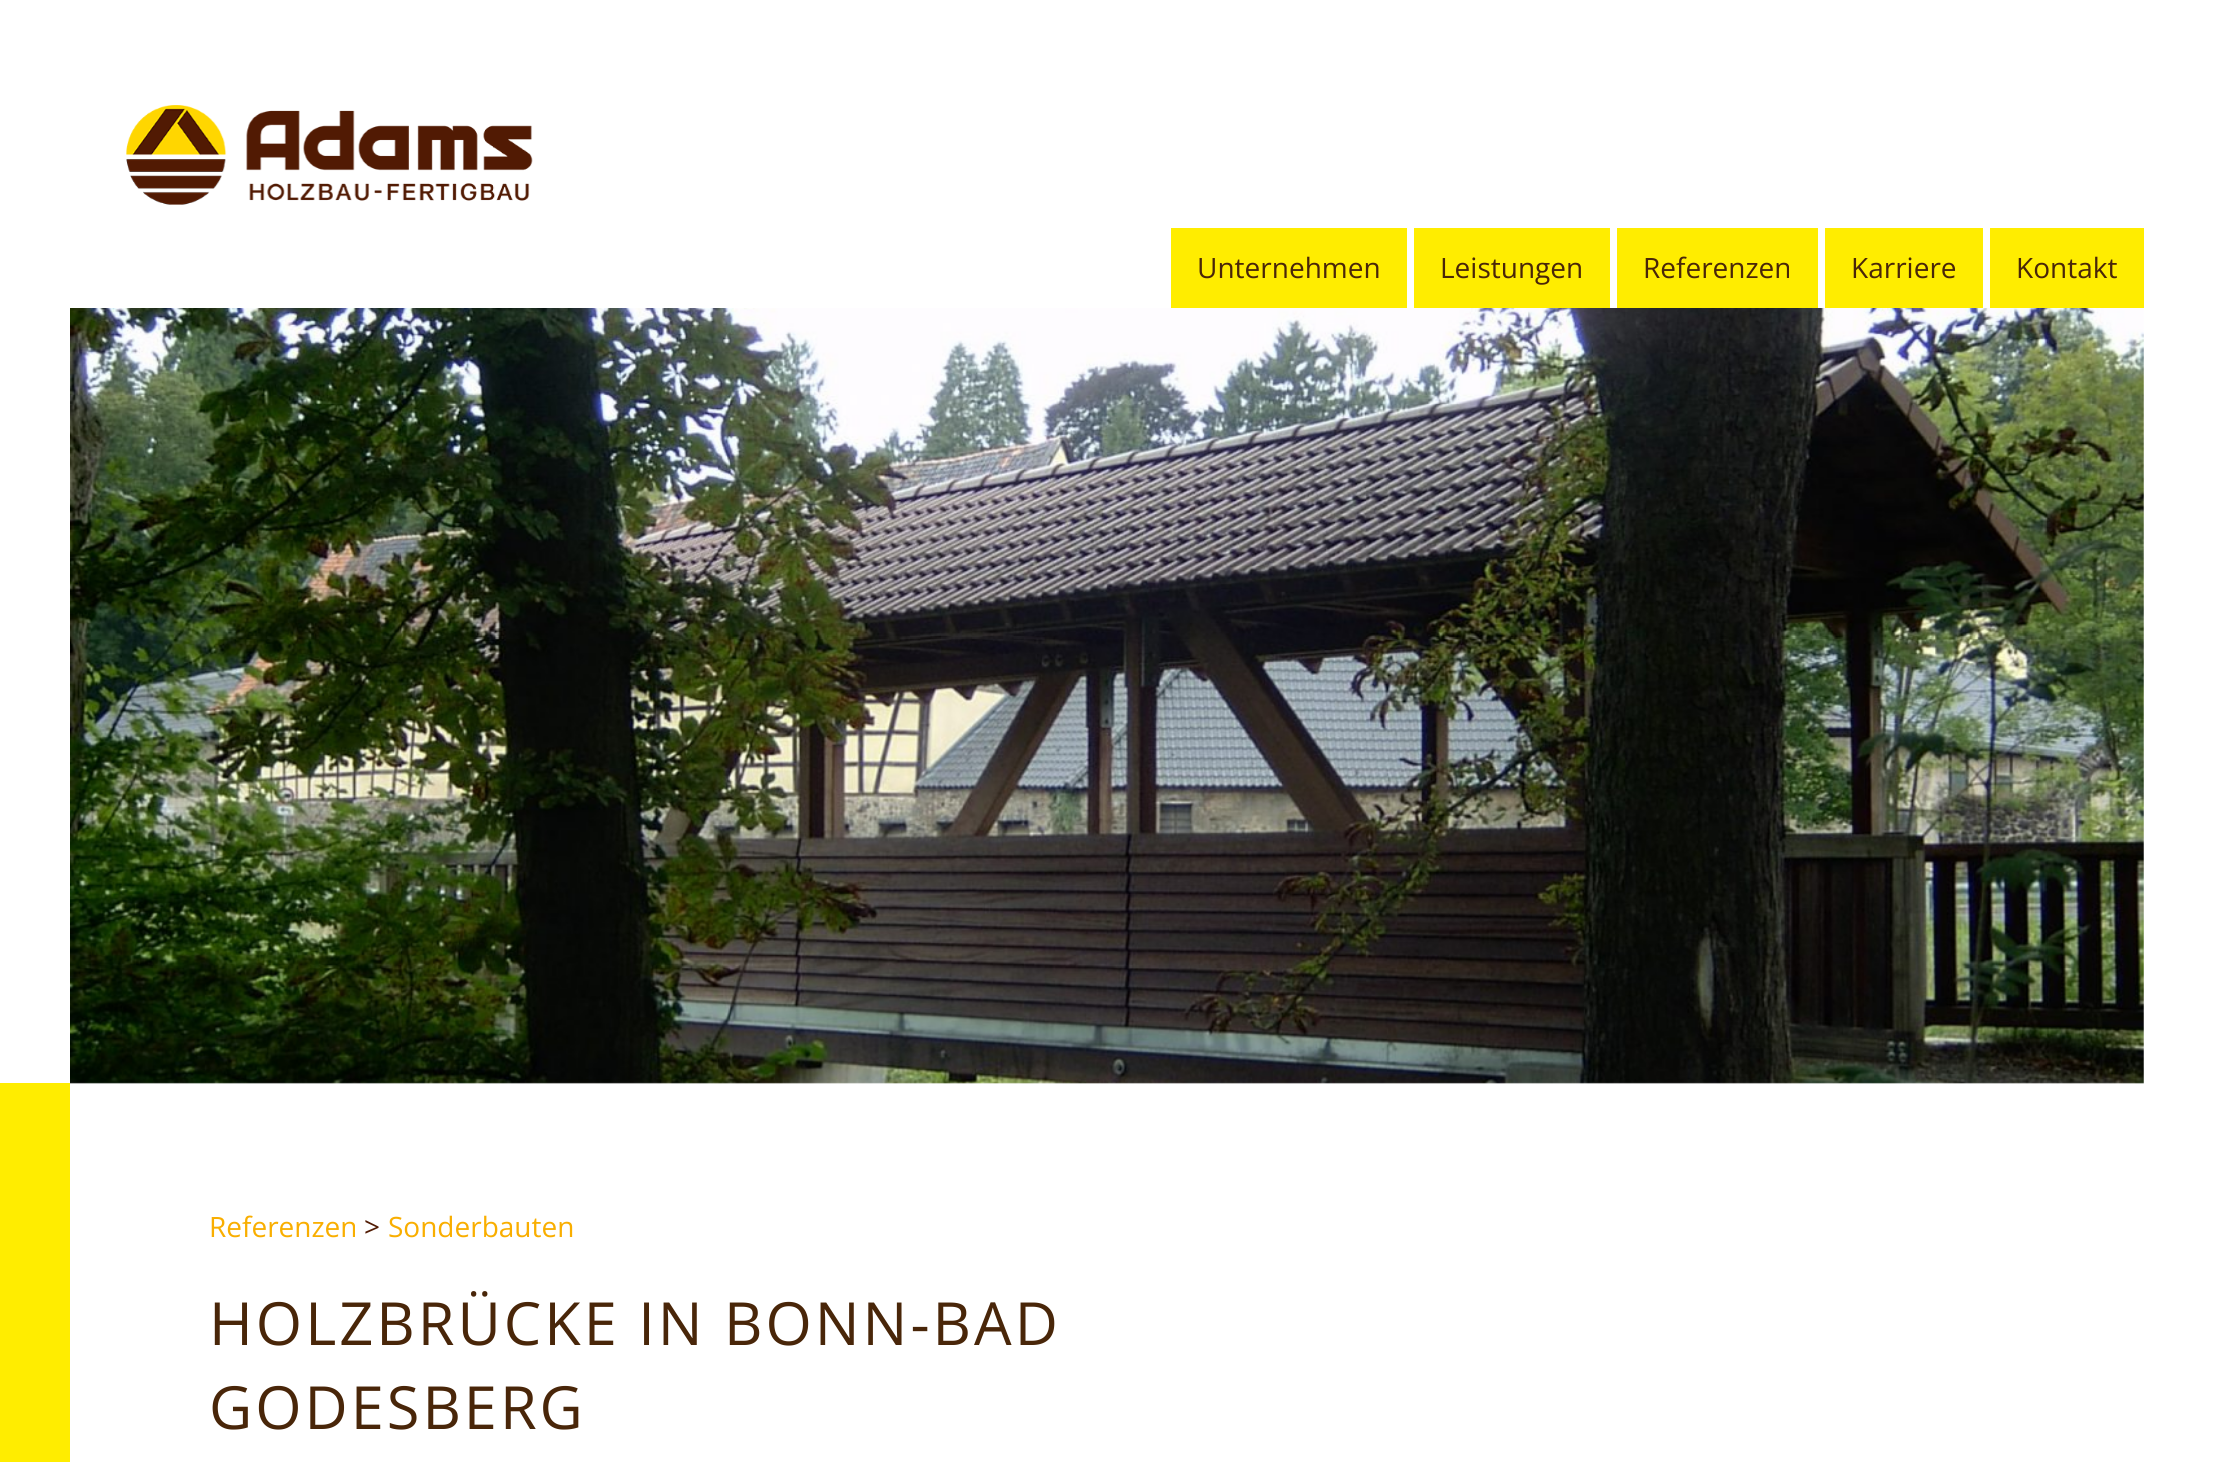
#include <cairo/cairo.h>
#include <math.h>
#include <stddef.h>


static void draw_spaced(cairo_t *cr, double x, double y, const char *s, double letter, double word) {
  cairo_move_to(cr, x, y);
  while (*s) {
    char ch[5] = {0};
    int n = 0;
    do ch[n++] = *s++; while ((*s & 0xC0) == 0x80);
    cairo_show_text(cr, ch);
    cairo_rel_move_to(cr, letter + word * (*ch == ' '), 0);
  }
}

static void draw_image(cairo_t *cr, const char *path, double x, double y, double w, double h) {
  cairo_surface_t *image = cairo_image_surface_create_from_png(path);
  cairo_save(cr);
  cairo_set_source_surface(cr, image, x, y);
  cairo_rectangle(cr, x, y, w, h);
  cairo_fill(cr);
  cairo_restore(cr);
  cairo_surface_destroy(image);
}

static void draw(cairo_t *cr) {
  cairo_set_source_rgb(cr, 1, 1, 1);
  cairo_paint(cr);
  draw_image(cr, "images/1.png", 126, 105, 407, 100);
  cairo_set_source_rgb(cr, 1, 237 / 255.0, 0);
  cairo_rectangle(cr, 1171, 228, 236, 80);
  cairo_fill(cr);
  cairo_rectangle(cr, 1414, 228, 196, 80);
  cairo_fill(cr);
  cairo_rectangle(cr, 1617, 228, 201, 80);
  cairo_fill(cr);
  cairo_rectangle(cr, 1825, 228, 158, 80);
  cairo_fill(cr);
  cairo_rectangle(cr, 1990, 228, 154, 80);
  cairo_fill(cr);
  draw_image(cr, "images/2.png", 70, 308, 2074, 776);
  cairo_rectangle(cr, 0, 1083, 70, 379);
  cairo_fill(cr);
  cairo_select_font_face(cr, "Open Sans", CAIRO_FONT_SLANT_NORMAL, CAIRO_FONT_WEIGHT_NORMAL);
  cairo_set_font_size(cr, 28);
  cairo_set_source_rgb(cr, 73 / 255.0, 38 / 255.0, 9 / 255.0);
  cairo_move_to(cr, 1197, 278);
  cairo_show_text(cr, "Unternehmen");
  cairo_move_to(cr, 1440, 278);
  cairo_show_text(cr, "Leistungen");
  cairo_move_to(cr, 1643, 278);
  cairo_show_text(cr, "Referenzen");
  cairo_move_to(cr, 1851, 278);
  cairo_show_text(cr, "Karriere");
  cairo_move_to(cr, 2016, 278);
  cairo_show_text(cr, "Kontakt");
  cairo_set_source_rgb(cr, 249 / 255.0, 174 / 255.0, 0);
  cairo_move_to(cr, 209, 1237);
  cairo_show_text(cr, "Referenzen");
  cairo_set_source_rgb(cr, 81 / 255.0, 27 / 255.0, 3 / 255.0);
  cairo_move_to(cr, 364, 1237);
  cairo_show_text(cr, ">");
  cairo_set_source_rgb(cr, 249 / 255.0, 174 / 255.0, 0);
  cairo_move_to(cr, 388, 1237);
  cairo_show_text(cr, "Sonderbauten");
  cairo_set_font_size(cr, 59.5);
  cairo_set_source_rgb(cr, 73 / 255.0, 38 / 255.0, 9 / 255.0);
  draw_spaced(cr, 209, 1345, "HOLZBRÜCKE IN BONN-BAD", 3, 0);
  draw_spaced(cr, 209, 1429, "GODESBERG", 3, 0);
}

int main(void) {
  cairo_surface_t *surface = cairo_image_surface_create(CAIRO_FORMAT_RGB24, 2213, 1462);
  cairo_t *cr = cairo_create(surface);
  cairo_font_options_t *options = cairo_font_options_create();
  cairo_font_options_set_hint_metrics(options, CAIRO_HINT_METRICS_OFF);
  cairo_font_options_set_hint_style(options, CAIRO_HINT_STYLE_NONE);
  cairo_set_font_options(cr, options);
  cairo_set_miter_limit(cr, 4);
  draw(cr);
  cairo_surface_write_to_png(surface, "out.png");
  cairo_font_options_destroy(options);
  cairo_destroy(cr);
  cairo_surface_destroy(surface);
  return 0;
}
